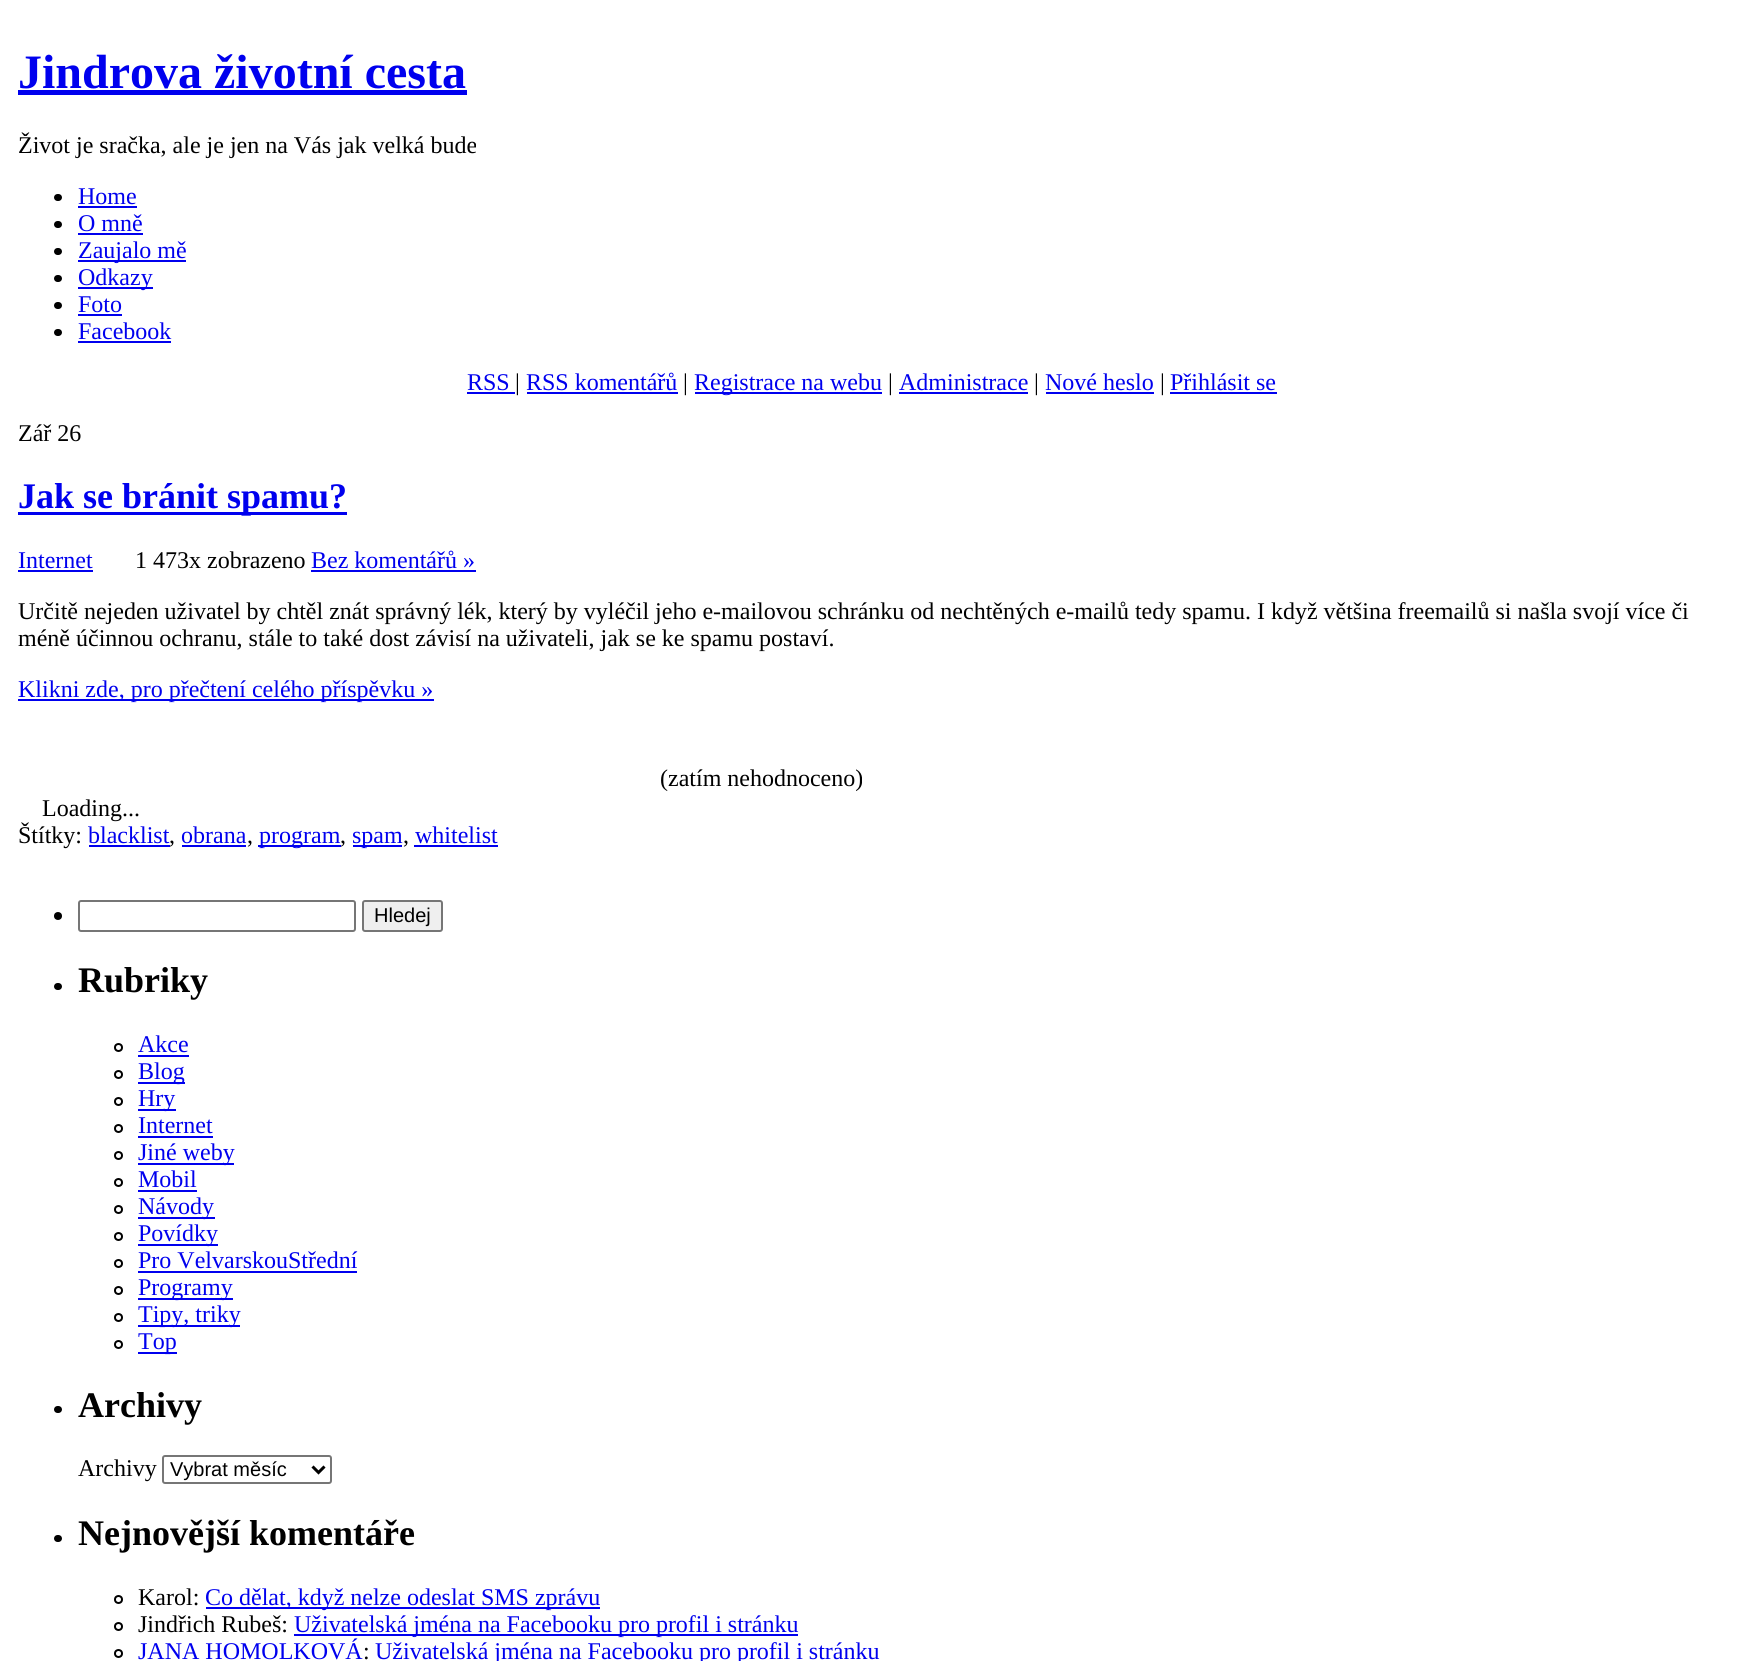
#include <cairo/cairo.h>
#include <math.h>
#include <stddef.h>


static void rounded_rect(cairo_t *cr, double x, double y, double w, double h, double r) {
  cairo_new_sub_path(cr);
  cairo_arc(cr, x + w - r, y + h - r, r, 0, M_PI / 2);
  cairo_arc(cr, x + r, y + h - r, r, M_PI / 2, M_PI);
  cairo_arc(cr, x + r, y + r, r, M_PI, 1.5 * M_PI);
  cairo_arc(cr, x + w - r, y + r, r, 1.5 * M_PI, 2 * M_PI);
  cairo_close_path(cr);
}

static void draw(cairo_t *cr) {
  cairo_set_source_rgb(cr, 1, 1, 1);
  cairo_paint(cr);
  cairo_set_source_rgb(cr, 0, 0, 238 / 255.0);
  cairo_rectangle(cr, 18, 90, 449, 5);
  cairo_fill(cr);
  cairo_set_source_rgb(cr, 0, 0, 0);
  rounded_rect(cr, 54, 194, 8, 7, 3.5);
  cairo_fill(cr);
  cairo_set_source_rgb(cr, 0, 0, 238 / 255.0);
  cairo_rectangle(cr, 78, 206, 59, 2);
  cairo_fill(cr);
  cairo_set_source_rgb(cr, 0, 0, 0);
  rounded_rect(cr, 54, 221, 8, 7, 3.5);
  cairo_fill(cr);
  cairo_set_source_rgb(cr, 0, 0, 238 / 255.0);
  cairo_rectangle(cr, 78, 233, 65, 2);
  cairo_fill(cr);
  cairo_set_source_rgb(cr, 0, 0, 0);
  rounded_rect(cr, 54, 248, 8, 7, 3.5);
  cairo_fill(cr);
  cairo_set_source_rgb(cr, 0, 0, 238 / 255.0);
  cairo_rectangle(cr, 78, 260, 108, 2);
  cairo_fill(cr);
  cairo_set_source_rgb(cr, 0, 0, 0);
  rounded_rect(cr, 54, 275, 8, 7, 3.5);
  cairo_fill(cr);
  cairo_set_source_rgb(cr, 0, 0, 238 / 255.0);
  cairo_rectangle(cr, 78, 287, 75, 2);
  cairo_fill(cr);
  cairo_set_source_rgb(cr, 0, 0, 0);
  rounded_rect(cr, 54, 302, 8, 7, 3.5);
  cairo_fill(cr);
  cairo_set_source_rgb(cr, 0, 0, 238 / 255.0);
  cairo_rectangle(cr, 78, 314, 44, 2);
  cairo_fill(cr);
  cairo_set_source_rgb(cr, 0, 0, 0);
  rounded_rect(cr, 54, 329, 8, 7, 3.5);
  cairo_fill(cr);
  cairo_set_source_rgb(cr, 0, 0, 238 / 255.0);
  cairo_rectangle(cr, 78, 341, 93, 2);
  cairo_fill(cr);
  cairo_rectangle(cr, 467, 392, 48, 2);
  cairo_fill(cr);
  cairo_rectangle(cr, 527, 392, 151, 2);
  cairo_fill(cr);
  cairo_rectangle(cr, 695, 392, 187, 2);
  cairo_fill(cr);
  cairo_rectangle(cr, 899, 392, 129, 2);
  cairo_fill(cr);
  cairo_rectangle(cr, 1046, 392, 108, 2);
  cairo_fill(cr);
  cairo_rectangle(cr, 1170, 392, 107, 2);
  cairo_fill(cr);
  cairo_rectangle(cr, 18, 512, 329, 3);
  cairo_fill(cr);
  cairo_rectangle(cr, 18, 570, 75, 2);
  cairo_fill(cr);
  cairo_rectangle(cr, 311, 570, 165, 2);
  cairo_fill(cr);
  cairo_rectangle(cr, 18, 699, 416, 2);
  cairo_fill(cr);
  cairo_rectangle(cr, 89, 845, 81, 2);
  cairo_fill(cr);
  cairo_rectangle(cr, 182, 845, 64, 2);
  cairo_fill(cr);
  cairo_rectangle(cr, 258, 845, 83, 2);
  cairo_fill(cr);
  cairo_rectangle(cr, 353, 845, 49, 2);
  cairo_fill(cr);
  cairo_rectangle(cr, 414, 845, 84, 2);
  cairo_fill(cr);
  cairo_set_source_rgb(cr, 0, 0, 0);
  cairo_arc(cr, 58, 916, 4, 0, 2 * M_PI);
  cairo_fill(cr);
  rounded_rect(cr, 79, 901, 276, 30, 2);
  cairo_set_source_rgb(cr, 118 / 255.0, 118 / 255.0, 118 / 255.0);
  cairo_stroke(cr);
  cairo_set_source_rgb(cr, 239 / 255.0, 239 / 255.0, 239 / 255.0);
  rounded_rect(cr, 363, 901, 79, 30, 2);
  cairo_fill_preserve(cr);
  cairo_set_source_rgb(cr, 118 / 255.0, 118 / 255.0, 118 / 255.0);
  cairo_stroke(cr);
  cairo_set_source_rgb(cr, 0, 0, 0);
  rounded_rect(cr, 54, 983, 8, 7, 3.5);
  cairo_fill(cr);
  cairo_arc(cr, 118.5, 1047.5, 3.5, 0, 2 * M_PI);
  cairo_stroke(cr);
  cairo_set_source_rgb(cr, 0, 0, 238 / 255.0);
  cairo_rectangle(cr, 138, 1055, 51, 2);
  cairo_fill(cr);
  cairo_arc(cr, 118.5, 1074.5, 3.5, 0, 2 * M_PI);
  cairo_set_source_rgb(cr, 0, 0, 0);
  cairo_stroke(cr);
  cairo_set_source_rgb(cr, 0, 0, 238 / 255.0);
  cairo_rectangle(cr, 138, 1082, 47, 2);
  cairo_fill(cr);
  cairo_arc(cr, 118.5, 1101.5, 3.5, 0, 2 * M_PI);
  cairo_set_source_rgb(cr, 0, 0, 0);
  cairo_stroke(cr);
  cairo_set_source_rgb(cr, 0, 0, 238 / 255.0);
  cairo_rectangle(cr, 138, 1109, 38, 2);
  cairo_fill(cr);
  cairo_arc(cr, 118.5, 1128.5, 3.5, 0, 2 * M_PI);
  cairo_set_source_rgb(cr, 0, 0, 0);
  cairo_stroke(cr);
  cairo_set_source_rgb(cr, 0, 0, 238 / 255.0);
  cairo_rectangle(cr, 138, 1136, 75, 2);
  cairo_fill(cr);
  cairo_arc(cr, 118.5, 1155.5, 3.5, 0, 2 * M_PI);
  cairo_set_source_rgb(cr, 0, 0, 0);
  cairo_stroke(cr);
  cairo_set_source_rgb(cr, 0, 0, 238 / 255.0);
  cairo_rectangle(cr, 138, 1163, 96, 2);
  cairo_fill(cr);
  cairo_arc(cr, 118.5, 1182.5, 3.5, 0, 2 * M_PI);
  cairo_set_source_rgb(cr, 0, 0, 0);
  cairo_stroke(cr);
  cairo_set_source_rgb(cr, 0, 0, 238 / 255.0);
  cairo_rectangle(cr, 138, 1190, 59, 2);
  cairo_fill(cr);
  cairo_arc(cr, 118.5, 1209.5, 3.5, 0, 2 * M_PI);
  cairo_set_source_rgb(cr, 0, 0, 0);
  cairo_stroke(cr);
  cairo_set_source_rgb(cr, 0, 0, 238 / 255.0);
  cairo_rectangle(cr, 138, 1217, 77, 2);
  cairo_fill(cr);
  cairo_arc(cr, 118.5, 1236.5, 3.5, 0, 2 * M_PI);
  cairo_set_source_rgb(cr, 0, 0, 0);
  cairo_stroke(cr);
  cairo_set_source_rgb(cr, 0, 0, 238 / 255.0);
  cairo_rectangle(cr, 138, 1244, 80, 2);
  cairo_fill(cr);
  cairo_arc(cr, 118.5, 1263.5, 3.5, 0, 2 * M_PI);
  cairo_set_source_rgb(cr, 0, 0, 0);
  cairo_stroke(cr);
  cairo_set_source_rgb(cr, 0, 0, 238 / 255.0);
  cairo_rectangle(cr, 138, 1271, 219, 2);
  cairo_fill(cr);
  cairo_arc(cr, 118.5, 1290.5, 3.5, 0, 2 * M_PI);
  cairo_set_source_rgb(cr, 0, 0, 0);
  cairo_stroke(cr);
  cairo_set_source_rgb(cr, 0, 0, 238 / 255.0);
  cairo_rectangle(cr, 138, 1298, 95, 2);
  cairo_fill(cr);
  cairo_arc(cr, 118.5, 1317.5, 3.5, 0, 2 * M_PI);
  cairo_set_source_rgb(cr, 0, 0, 0);
  cairo_stroke(cr);
  cairo_set_source_rgb(cr, 0, 0, 238 / 255.0);
  cairo_rectangle(cr, 138, 1325, 102, 2);
  cairo_fill(cr);
  cairo_arc(cr, 118.5, 1344.5, 3.5, 0, 2 * M_PI);
  cairo_set_source_rgb(cr, 0, 0, 0);
  cairo_stroke(cr);
  cairo_set_source_rgb(cr, 0, 0, 238 / 255.0);
  cairo_rectangle(cr, 138, 1352, 39, 2);
  cairo_fill(cr);
  cairo_set_source_rgb(cr, 0, 0, 0);
  rounded_rect(cr, 54, 1406, 8, 7, 3.5);
  cairo_fill(cr);
  rounded_rect(cr, 163, 1456, 168, 27, 2);
  cairo_set_source_rgb(cr, 118 / 255.0, 118 / 255.0, 118 / 255.0);
  cairo_stroke(cr);
  cairo_new_path(cr);
  cairo_move_to(cr, 312.5, 1466.5);
  cairo_line_to(cr, 318.5, 1472.5);
  cairo_line_to(cr, 324.5, 1466.5);
  cairo_set_source_rgb(cr, 0, 0, 0);
  cairo_set_line_width(cr, 3);
  cairo_stroke(cr);
  rounded_rect(cr, 54, 1535, 8, 7, 3.5);
  cairo_fill(cr);
  cairo_arc(cr, 118.5, 1599.5, 3.5, 0, 2 * M_PI);
  cairo_set_line_width(cr, 2);
  cairo_stroke(cr);
  cairo_set_source_rgb(cr, 0, 0, 238 / 255.0);
  cairo_rectangle(cr, 206, 1607, 394, 2);
  cairo_fill(cr);
  cairo_arc(cr, 118.5, 1626.5, 3.5, 0, 2 * M_PI);
  cairo_set_source_rgb(cr, 0, 0, 0);
  cairo_stroke(cr);
  cairo_set_source_rgb(cr, 0, 0, 238 / 255.0);
  cairo_rectangle(cr, 294, 1634, 504, 2);
  cairo_fill(cr);
  cairo_arc(cr, 118.5, 1653.5, 3.5, 0, 2 * M_PI);
  cairo_set_source_rgb(cr, 0, 0, 0);
  cairo_stroke(cr);
  cairo_select_font_face(cr, "Liberation Serif", CAIRO_FONT_SLANT_NORMAL, CAIRO_FONT_WEIGHT_BOLD);
  cairo_set_font_size(cr, 48);
  cairo_set_source_rgb(cr, 0, 0, 238 / 255.0);
  cairo_move_to(cr, 18, 88);
  cairo_show_text(cr, "Jindrova životní cesta");
  cairo_select_font_face(cr, "Liberation Serif", CAIRO_FONT_SLANT_NORMAL, CAIRO_FONT_WEIGHT_NORMAL);
  cairo_set_font_size(cr, 24);
  cairo_set_source_rgb(cr, 0, 0, 0);
  cairo_move_to(cr, 18, 153);
  cairo_show_text(cr, "Život je sračka, ale je jen na Vás jak velká bude");
  cairo_set_source_rgb(cr, 0, 0, 238 / 255.0);
  cairo_move_to(cr, 78, 204);
  cairo_show_text(cr, "Home");
  cairo_move_to(cr, 78, 231);
  cairo_show_text(cr, "O mně");
  cairo_move_to(cr, 78, 258);
  cairo_show_text(cr, "Zaujalo mě");
  cairo_move_to(cr, 78, 285);
  cairo_show_text(cr, "Odkazy");
  cairo_move_to(cr, 78, 312);
  cairo_show_text(cr, "Foto");
  cairo_move_to(cr, 78, 339);
  cairo_show_text(cr, "Facebook");
  cairo_move_to(cr, 467, 390);
  cairo_show_text(cr, "RSS");
  cairo_set_source_rgb(cr, 0, 0, 0);
  cairo_move_to(cr, 515, 390);
  cairo_show_text(cr, "|");
  cairo_set_source_rgb(cr, 0, 0, 238 / 255.0);
  cairo_move_to(cr, 526, 390);
  cairo_show_text(cr, "RSS komentářů");
  cairo_set_source_rgb(cr, 0, 0, 0);
  cairo_move_to(cr, 683, 390);
  cairo_show_text(cr, "|");
  cairo_set_source_rgb(cr, 0, 0, 238 / 255.0);
  cairo_move_to(cr, 694, 390);
  cairo_show_text(cr, "Registrace na webu");
  cairo_set_source_rgb(cr, 0, 0, 0);
  cairo_move_to(cr, 888, 390);
  cairo_show_text(cr, "|");
  cairo_set_source_rgb(cr, 0, 0, 238 / 255.0);
  cairo_move_to(cr, 899, 390);
  cairo_show_text(cr, "Administrace");
  cairo_set_source_rgb(cr, 0, 0, 0);
  cairo_move_to(cr, 1034, 390);
  cairo_show_text(cr, "|");
  cairo_set_source_rgb(cr, 0, 0, 238 / 255.0);
  cairo_move_to(cr, 1045, 390);
  cairo_show_text(cr, "Nové heslo");
  cairo_set_source_rgb(cr, 0, 0, 0);
  cairo_move_to(cr, 1160, 390);
  cairo_show_text(cr, "|");
  cairo_set_source_rgb(cr, 0, 0, 238 / 255.0);
  cairo_move_to(cr, 1170, 390);
  cairo_show_text(cr, "Přihlásit se");
  cairo_set_source_rgb(cr, 0, 0, 0);
  cairo_move_to(cr, 18, 441);
  cairo_show_text(cr, "Zář 26");
  cairo_select_font_face(cr, "Liberation Serif", CAIRO_FONT_SLANT_NORMAL, CAIRO_FONT_WEIGHT_BOLD);
  cairo_set_font_size(cr, 36);
  cairo_set_source_rgb(cr, 0, 0, 238 / 255.0);
  cairo_move_to(cr, 18, 508);
  cairo_show_text(cr, "Jak se bránit spamu?");
  cairo_select_font_face(cr, "Liberation Serif", CAIRO_FONT_SLANT_NORMAL, CAIRO_FONT_WEIGHT_NORMAL);
  cairo_set_font_size(cr, 24);
  cairo_move_to(cr, 18, 568);
  cairo_show_text(cr, "Internet");
  cairo_set_source_rgb(cr, 0, 0, 0);
  cairo_move_to(cr, 135, 568);
  cairo_show_text(cr, "1 473x zobrazeno");
  cairo_set_source_rgb(cr, 0, 0, 238 / 255.0);
  cairo_move_to(cr, 311, 568);
  cairo_show_text(cr, "Bez komentářů »");
  cairo_set_source_rgb(cr, 0, 0, 0);
  cairo_move_to(cr, 18, 619);
  cairo_show_text(cr, "Určitě nejeden uživatel by chtěl znát správný lék, který by vyléčil jeho e-mailovou schránku od nechtěných e-mailů tedy spamu. I když většina freemailů si našla svojí více či");
  cairo_move_to(cr, 18, 646);
  cairo_show_text(cr, "méně účinnou ochranu, stále to také dost závisí na uživateli, jak se ke spamu postaví.");
  cairo_set_source_rgb(cr, 0, 0, 238 / 255.0);
  cairo_move_to(cr, 18, 697);
  cairo_show_text(cr, "Klikni zde, pro přečtení celého příspěvku »");
  cairo_set_source_rgb(cr, 0, 0, 0);
  cairo_move_to(cr, 660, 786);
  cairo_show_text(cr, "(zatím nehodnoceno)");
  cairo_move_to(cr, 42, 816);
  cairo_show_text(cr, "Loading...");
  cairo_move_to(cr, 18, 843);
  cairo_show_text(cr, "Štítky:");
  cairo_set_source_rgb(cr, 0, 0, 238 / 255.0);
  cairo_move_to(cr, 88, 843);
  cairo_show_text(cr, "blacklist");
  cairo_set_source_rgb(cr, 0, 0, 0);
  cairo_move_to(cr, 169, 843);
  cairo_show_text(cr, ",");
  cairo_set_source_rgb(cr, 0, 0, 238 / 255.0);
  cairo_move_to(cr, 181, 843);
  cairo_show_text(cr, "obrana");
  cairo_set_source_rgb(cr, 0, 0, 0);
  cairo_move_to(cr, 247, 843);
  cairo_show_text(cr, ",");
  cairo_set_source_rgb(cr, 0, 0, 238 / 255.0);
  cairo_move_to(cr, 259, 843);
  cairo_show_text(cr, "program");
  cairo_set_source_rgb(cr, 0, 0, 0);
  cairo_move_to(cr, 340, 843);
  cairo_show_text(cr, ",");
  cairo_set_source_rgb(cr, 0, 0, 238 / 255.0);
  cairo_move_to(cr, 352, 843);
  cairo_show_text(cr, "spam");
  cairo_set_source_rgb(cr, 0, 0, 0);
  cairo_move_to(cr, 403, 843);
  cairo_show_text(cr, ",");
  cairo_set_source_rgb(cr, 0, 0, 238 / 255.0);
  cairo_move_to(cr, 415, 843);
  cairo_show_text(cr, "whitelist");
  cairo_select_font_face(cr, "Liberation Sans", CAIRO_FONT_SLANT_NORMAL, CAIRO_FONT_WEIGHT_NORMAL);
  cairo_set_font_size(cr, 20);
  cairo_set_source_rgb(cr, 0, 0, 0);
  cairo_move_to(cr, 374, 922);
  cairo_show_text(cr, "Hledej");
  cairo_select_font_face(cr, "Liberation Serif", CAIRO_FONT_SLANT_NORMAL, CAIRO_FONT_WEIGHT_BOLD);
  cairo_set_font_size(cr, 36);
  cairo_move_to(cr, 78, 992);
  cairo_show_text(cr, "Rubriky");
  cairo_select_font_face(cr, "Liberation Serif", CAIRO_FONT_SLANT_NORMAL, CAIRO_FONT_WEIGHT_NORMAL);
  cairo_set_font_size(cr, 24);
  cairo_set_source_rgb(cr, 0, 0, 238 / 255.0);
  cairo_move_to(cr, 138, 1052);
  cairo_show_text(cr, "Akce");
  cairo_move_to(cr, 138, 1079);
  cairo_show_text(cr, "Blog");
  cairo_move_to(cr, 138, 1106);
  cairo_show_text(cr, "Hry");
  cairo_move_to(cr, 138, 1133);
  cairo_show_text(cr, "Internet");
  cairo_move_to(cr, 138, 1160);
  cairo_show_text(cr, "Jiné weby");
  cairo_move_to(cr, 138, 1187);
  cairo_show_text(cr, "Mobil");
  cairo_move_to(cr, 138, 1214);
  cairo_show_text(cr, "Návody");
  cairo_move_to(cr, 138, 1241);
  cairo_show_text(cr, "Povídky");
  cairo_move_to(cr, 138, 1268);
  cairo_show_text(cr, "Pro VelvarskouStřední");
  cairo_move_to(cr, 138, 1295);
  cairo_show_text(cr, "Programy");
  cairo_move_to(cr, 138, 1322);
  cairo_show_text(cr, "Tipy, triky");
  cairo_move_to(cr, 138, 1349);
  cairo_show_text(cr, "Top");
  cairo_select_font_face(cr, "Liberation Serif", CAIRO_FONT_SLANT_NORMAL, CAIRO_FONT_WEIGHT_BOLD);
  cairo_set_font_size(cr, 36);
  cairo_set_source_rgb(cr, 0, 0, 0);
  cairo_move_to(cr, 78, 1417);
  cairo_show_text(cr, "Archivy");
  cairo_select_font_face(cr, "Liberation Serif", CAIRO_FONT_SLANT_NORMAL, CAIRO_FONT_WEIGHT_NORMAL);
  cairo_set_font_size(cr, 24);
  cairo_move_to(cr, 78, 1476);
  cairo_show_text(cr, "Archivy");
  cairo_select_font_face(cr, "Liberation Sans", CAIRO_FONT_SLANT_NORMAL, CAIRO_FONT_WEIGHT_NORMAL);
  cairo_set_font_size(cr, 20);
  cairo_move_to(cr, 170, 1476);
  cairo_show_text(cr, "Vybrat měsíc");
  cairo_select_font_face(cr, "Liberation Serif", CAIRO_FONT_SLANT_NORMAL, CAIRO_FONT_WEIGHT_BOLD);
  cairo_set_font_size(cr, 36);
  cairo_move_to(cr, 78, 1545);
  cairo_show_text(cr, "Nejnovější komentáře");
  cairo_select_font_face(cr, "Liberation Serif", CAIRO_FONT_SLANT_NORMAL, CAIRO_FONT_WEIGHT_NORMAL);
  cairo_set_font_size(cr, 24);
  cairo_move_to(cr, 138, 1605);
  cairo_show_text(cr, "Karol:");
  cairo_set_source_rgb(cr, 0, 0, 238 / 255.0);
  cairo_move_to(cr, 205, 1605);
  cairo_show_text(cr, "Co dělat, když nelze odeslat SMS zprávu");
  cairo_set_source_rgb(cr, 0, 0, 0);
  cairo_move_to(cr, 138, 1632);
  cairo_show_text(cr, "Jindřich Rubeš:");
  cairo_set_source_rgb(cr, 0, 0, 238 / 255.0);
  cairo_move_to(cr, 294, 1632);
  cairo_show_text(cr, "Uživatelská jména na Facebooku pro profil i stránku");
  cairo_move_to(cr, 138, 1659);
  cairo_show_text(cr, "JANA HOMOLKOVÁ");
  cairo_set_source_rgb(cr, 0, 0, 0);
  cairo_move_to(cr, 363, 1659);
  cairo_show_text(cr, ":");
  cairo_set_source_rgb(cr, 0, 0, 238 / 255.0);
  cairo_move_to(cr, 375, 1659);
  cairo_show_text(cr, "Uživatelská jména na Facebooku pro profil i stránku");
}

int main(void) {
  cairo_surface_t *surface = cairo_image_surface_create(CAIRO_FORMAT_RGB24, 1742, 1661);
  cairo_t *cr = cairo_create(surface);
  cairo_font_options_t *options = cairo_font_options_create();
  cairo_font_options_set_hint_metrics(options, CAIRO_HINT_METRICS_OFF);
  cairo_font_options_set_hint_style(options, CAIRO_HINT_STYLE_NONE);
  cairo_set_font_options(cr, options);
  cairo_set_miter_limit(cr, 4);
  draw(cr);
  cairo_surface_write_to_png(surface, "out.png");
  cairo_font_options_destroy(options);
  cairo_destroy(cr);
  cairo_surface_destroy(surface);
  return 0;
}
